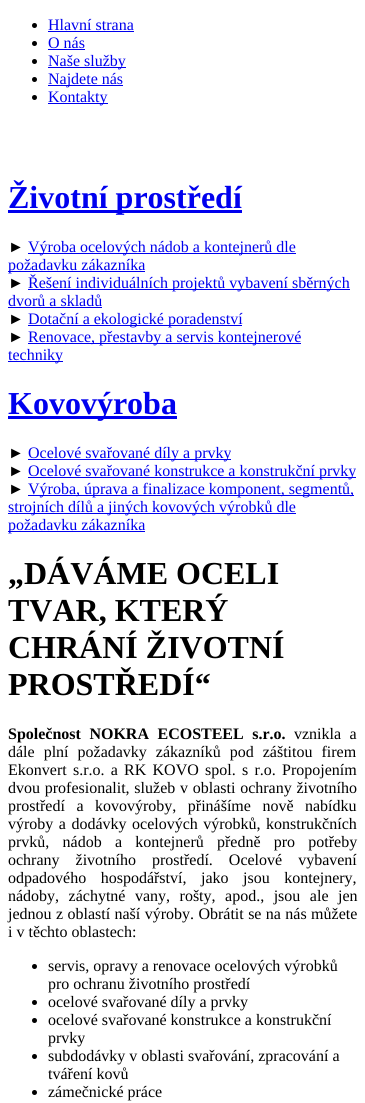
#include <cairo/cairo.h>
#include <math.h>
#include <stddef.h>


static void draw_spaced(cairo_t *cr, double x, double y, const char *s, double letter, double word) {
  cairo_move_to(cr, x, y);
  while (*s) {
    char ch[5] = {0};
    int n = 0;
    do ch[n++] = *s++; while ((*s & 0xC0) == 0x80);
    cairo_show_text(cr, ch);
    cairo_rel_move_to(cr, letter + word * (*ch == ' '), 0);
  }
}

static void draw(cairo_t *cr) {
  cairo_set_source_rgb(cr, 1, 1, 1);
  cairo_paint(cr);
  cairo_set_source_rgb(cr, 0, 0, 0);
  cairo_arc(cr, 34.5, 25.5, 2.5, 0, 2 * M_PI);
  cairo_fill(cr);
  cairo_set_source_rgb(cr, 0, 0, 238 / 255.0);
  cairo_rectangle(cr, 48, 31, 86, 1);
  cairo_fill(cr);
  cairo_set_source_rgb(cr, 0, 0, 0);
  cairo_arc(cr, 34.5, 43.5, 2.5, 0, 2 * M_PI);
  cairo_fill(cr);
  cairo_set_source_rgb(cr, 0, 0, 238 / 255.0);
  cairo_rectangle(cr, 48, 49, 37, 1);
  cairo_fill(cr);
  cairo_set_source_rgb(cr, 0, 0, 0);
  cairo_arc(cr, 34.5, 61.5, 2.5, 0, 2 * M_PI);
  cairo_fill(cr);
  cairo_set_source_rgb(cr, 0, 0, 238 / 255.0);
  cairo_rectangle(cr, 48, 67, 78, 1);
  cairo_fill(cr);
  cairo_set_source_rgb(cr, 0, 0, 0);
  cairo_arc(cr, 34.5, 79.5, 2.5, 0, 2 * M_PI);
  cairo_fill(cr);
  cairo_set_source_rgb(cr, 0, 0, 238 / 255.0);
  cairo_rectangle(cr, 48, 85, 75, 1);
  cairo_fill(cr);
  cairo_set_source_rgb(cr, 0, 0, 0);
  cairo_arc(cr, 34.5, 97.5, 2.5, 0, 2 * M_PI);
  cairo_fill(cr);
  cairo_set_source_rgb(cr, 0, 0, 238 / 255.0);
  cairo_rectangle(cr, 48, 103, 60, 1);
  cairo_fill(cr);
  cairo_rectangle(cr, 8, 210, 234, 3);
  cairo_fill(cr);
  cairo_rectangle(cr, 28, 253, 268, 1);
  cairo_fill(cr);
  cairo_rectangle(cr, 8, 271, 137, 1);
  cairo_fill(cr);
  cairo_rectangle(cr, 28, 289, 322, 1);
  cairo_fill(cr);
  cairo_rectangle(cr, 8, 307, 94, 1);
  cairo_fill(cr);
  cairo_rectangle(cr, 28, 325, 214, 1);
  cairo_fill(cr);
  cairo_rectangle(cr, 28, 343, 273, 1);
  cairo_fill(cr);
  cairo_rectangle(cr, 8, 361, 55, 1);
  cairo_fill(cr);
  cairo_rectangle(cr, 8, 416, 169, 3);
  cairo_fill(cr);
  cairo_rectangle(cr, 28, 459, 203, 1);
  cairo_fill(cr);
  cairo_rectangle(cr, 28, 477, 328, 1);
  cairo_fill(cr);
  cairo_rectangle(cr, 28, 495, 326, 1);
  cairo_fill(cr);
  cairo_rectangle(cr, 8, 513, 288, 1);
  cairo_fill(cr);
  cairo_rectangle(cr, 8, 531, 137, 1);
  cairo_fill(cr);
  cairo_set_source_rgb(cr, 0, 0, 0);
  cairo_arc(cr, 34.5, 966.5, 2.5, 0, 2 * M_PI);
  cairo_fill(cr);
  cairo_arc(cr, 34.5, 1002.5, 2.5, 0, 2 * M_PI);
  cairo_fill(cr);
  cairo_arc(cr, 34.5, 1020.5, 2.5, 0, 2 * M_PI);
  cairo_fill(cr);
  cairo_arc(cr, 34.5, 1056.5, 2.5, 0, 2 * M_PI);
  cairo_fill(cr);
  cairo_arc(cr, 34.5, 1092.5, 2.5, 0, 2 * M_PI);
  cairo_fill(cr);
  cairo_select_font_face(cr, "Liberation Serif", CAIRO_FONT_SLANT_NORMAL, CAIRO_FONT_WEIGHT_NORMAL);
  cairo_set_font_size(cr, 16);
  cairo_set_source_rgb(cr, 0, 0, 238 / 255.0);
  cairo_move_to(cr, 48, 30);
  cairo_show_text(cr, "Hlavní strana");
  cairo_move_to(cr, 48, 48);
  cairo_show_text(cr, "O nás");
  cairo_move_to(cr, 48, 66);
  cairo_show_text(cr, "Naše služby");
  cairo_move_to(cr, 48, 84);
  cairo_show_text(cr, "Najdete nás");
  cairo_move_to(cr, 48, 102);
  cairo_show_text(cr, "Kontakty");
  cairo_select_font_face(cr, "Liberation Serif", CAIRO_FONT_SLANT_NORMAL, CAIRO_FONT_WEIGHT_BOLD);
  cairo_set_font_size(cr, 32);
  cairo_move_to(cr, 8, 208);
  cairo_show_text(cr, "Životní prostředí");
  cairo_select_font_face(cr, "Liberation Serif", CAIRO_FONT_SLANT_NORMAL, CAIRO_FONT_WEIGHT_NORMAL);
  cairo_set_font_size(cr, 16);
  cairo_set_source_rgb(cr, 0, 0, 0);
  cairo_move_to(cr, 8, 252);
  cairo_show_text(cr, "►");
  cairo_set_source_rgb(cr, 0, 0, 238 / 255.0);
  cairo_move_to(cr, 28, 252);
  cairo_show_text(cr, "Výroba ocelových nádob a kontejnerů dle");
  cairo_move_to(cr, 8, 270);
  cairo_show_text(cr, "požadavku zákazníka");
  cairo_set_source_rgb(cr, 0, 0, 0);
  cairo_move_to(cr, 8, 288);
  cairo_show_text(cr, "►");
  cairo_set_source_rgb(cr, 0, 0, 238 / 255.0);
  cairo_move_to(cr, 28, 288);
  cairo_show_text(cr, "Řešení individuálních projektů vybavení sběrných");
  cairo_move_to(cr, 8, 306);
  cairo_show_text(cr, "dvorů a skladů");
  cairo_set_source_rgb(cr, 0, 0, 0);
  cairo_move_to(cr, 8, 324);
  cairo_show_text(cr, "►");
  cairo_set_source_rgb(cr, 0, 0, 238 / 255.0);
  cairo_move_to(cr, 28, 324);
  cairo_show_text(cr, "Dotační a ekologické poradenství");
  cairo_set_source_rgb(cr, 0, 0, 0);
  cairo_move_to(cr, 8, 342);
  cairo_show_text(cr, "►");
  cairo_set_source_rgb(cr, 0, 0, 238 / 255.0);
  cairo_move_to(cr, 28, 342);
  cairo_show_text(cr, "Renovace, přestavby a servis kontejnerové");
  cairo_move_to(cr, 8, 360);
  cairo_show_text(cr, "techniky");
  cairo_select_font_face(cr, "Liberation Serif", CAIRO_FONT_SLANT_NORMAL, CAIRO_FONT_WEIGHT_BOLD);
  cairo_set_font_size(cr, 32);
  cairo_move_to(cr, 8, 414);
  cairo_show_text(cr, "Kovovýroba");
  cairo_select_font_face(cr, "Liberation Serif", CAIRO_FONT_SLANT_NORMAL, CAIRO_FONT_WEIGHT_NORMAL);
  cairo_set_font_size(cr, 16);
  cairo_set_source_rgb(cr, 0, 0, 0);
  cairo_move_to(cr, 8, 458);
  cairo_show_text(cr, "►");
  cairo_set_source_rgb(cr, 0, 0, 238 / 255.0);
  cairo_move_to(cr, 28, 458);
  cairo_show_text(cr, "Ocelové svařované díly a prvky");
  cairo_set_source_rgb(cr, 0, 0, 0);
  cairo_move_to(cr, 8, 476);
  cairo_show_text(cr, "►");
  cairo_set_source_rgb(cr, 0, 0, 238 / 255.0);
  cairo_move_to(cr, 28, 476);
  cairo_show_text(cr, "Ocelové svařované konstrukce a konstrukční prvky");
  cairo_set_source_rgb(cr, 0, 0, 0);
  cairo_move_to(cr, 8, 494);
  cairo_show_text(cr, "►");
  cairo_set_source_rgb(cr, 0, 0, 238 / 255.0);
  cairo_move_to(cr, 28, 494);
  cairo_show_text(cr, "Výroba, úprava a finalizace komponent, segmentů,");
  cairo_move_to(cr, 8, 512);
  cairo_show_text(cr, "strojních dílů a jiných kovových výrobků dle");
  cairo_move_to(cr, 8, 530);
  cairo_show_text(cr, "požadavku zákazníka");
  cairo_select_font_face(cr, "Liberation Serif", CAIRO_FONT_SLANT_NORMAL, CAIRO_FONT_WEIGHT_BOLD);
  cairo_set_font_size(cr, 32);
  cairo_set_source_rgb(cr, 0, 0, 0);
  cairo_move_to(cr, 8, 584);
  cairo_show_text(cr, "„DÁVÁME OCELI");
  cairo_move_to(cr, 8, 621);
  cairo_show_text(cr, "TVAR, KTERÝ");
  cairo_move_to(cr, 8, 658);
  cairo_show_text(cr, "CHRÁNÍ ŽIVOTNÍ");
  cairo_move_to(cr, 8, 695);
  cairo_show_text(cr, "PROSTŘEDÍ“");
  cairo_set_font_size(cr, 16);
  draw_spaced(cr, 8, 739, "Společnost NOKRA ECOSTEEL s.r.o.", 0, 4.5);
  cairo_select_font_face(cr, "Liberation Serif", CAIRO_FONT_SLANT_NORMAL, CAIRO_FONT_WEIGHT_NORMAL);
  draw_spaced(cr, 294, 739, "vznikla a", 0, 4.5);
  draw_spaced(cr, 8, 757, "dále plní požadavky zákazníků pod záštitou firem", 0, 5);
  draw_spaced(cr, 8, 775, "Ekonvert s.r.o. a RK KOVO spol. s r.o. Propojením", 0, 2.25);
  draw_spaced(cr, 8, 793, "dvou profesionalit, služeb v oblasti ochrany životního", 0, 0.75);
  draw_spaced(cr, 8, 811, "prostředí a kovovýroby, přinášíme nově nabídku", 0, 7.5);
  draw_spaced(cr, 8, 829, "výroby a dodávky ocelových výrobků, konstrukčních", 0, 1.5);
  draw_spaced(cr, 8, 847, "prvků, nádob a kontejnerů předně pro potřeby", 0, 9.25);
  draw_spaced(cr, 8, 865, "ochrany životního prostředí. Ocelové vybavení", 0, 12);
  draw_spaced(cr, 8, 883, "odpadového hospodářství, jako jsou kontejnery,", 0, 10.5);
  draw_spaced(cr, 8, 901, "nádoby, záchytné vany, rošty, apod., jsou ale jen", 0, 5.5);
  draw_spaced(cr, 8, 919, "jednou z oblastí naší výroby. Obrátit se na nás můžete", 0, 0.4);
  cairo_move_to(cr, 8, 937);
  cairo_show_text(cr, "i v těchto oblastech:");
  cairo_move_to(cr, 48, 971);
  cairo_show_text(cr, "servis, opravy a renovace ocelových výrobků");
  cairo_move_to(cr, 48, 989);
  cairo_show_text(cr, "pro ochranu životního prostředí");
  cairo_move_to(cr, 48, 1007);
  cairo_show_text(cr, "ocelové svařované díly a prvky");
  cairo_move_to(cr, 48, 1025);
  cairo_show_text(cr, "ocelové svařované konstrukce a konstrukční");
  cairo_move_to(cr, 48, 1043);
  cairo_show_text(cr, "prvky");
  cairo_move_to(cr, 48, 1061);
  cairo_show_text(cr, "subdodávky v oblasti svařování, zpracování a");
  cairo_move_to(cr, 48, 1079);
  cairo_show_text(cr, "tváření kovů");
  cairo_move_to(cr, 48, 1097);
  cairo_show_text(cr, "zámečnické práce");
}

int main(void) {
  cairo_surface_t *surface = cairo_image_surface_create(CAIRO_FORMAT_RGB24, 365, 1103);
  cairo_t *cr = cairo_create(surface);
  cairo_font_options_t *options = cairo_font_options_create();
  cairo_font_options_set_hint_metrics(options, CAIRO_HINT_METRICS_OFF);
  cairo_font_options_set_hint_style(options, CAIRO_HINT_STYLE_NONE);
  cairo_set_font_options(cr, options);
  cairo_set_miter_limit(cr, 4);
  draw(cr);
  cairo_surface_write_to_png(surface, "out.png");
  cairo_font_options_destroy(options);
  cairo_destroy(cr);
  cairo_surface_destroy(surface);
  return 0;
}
